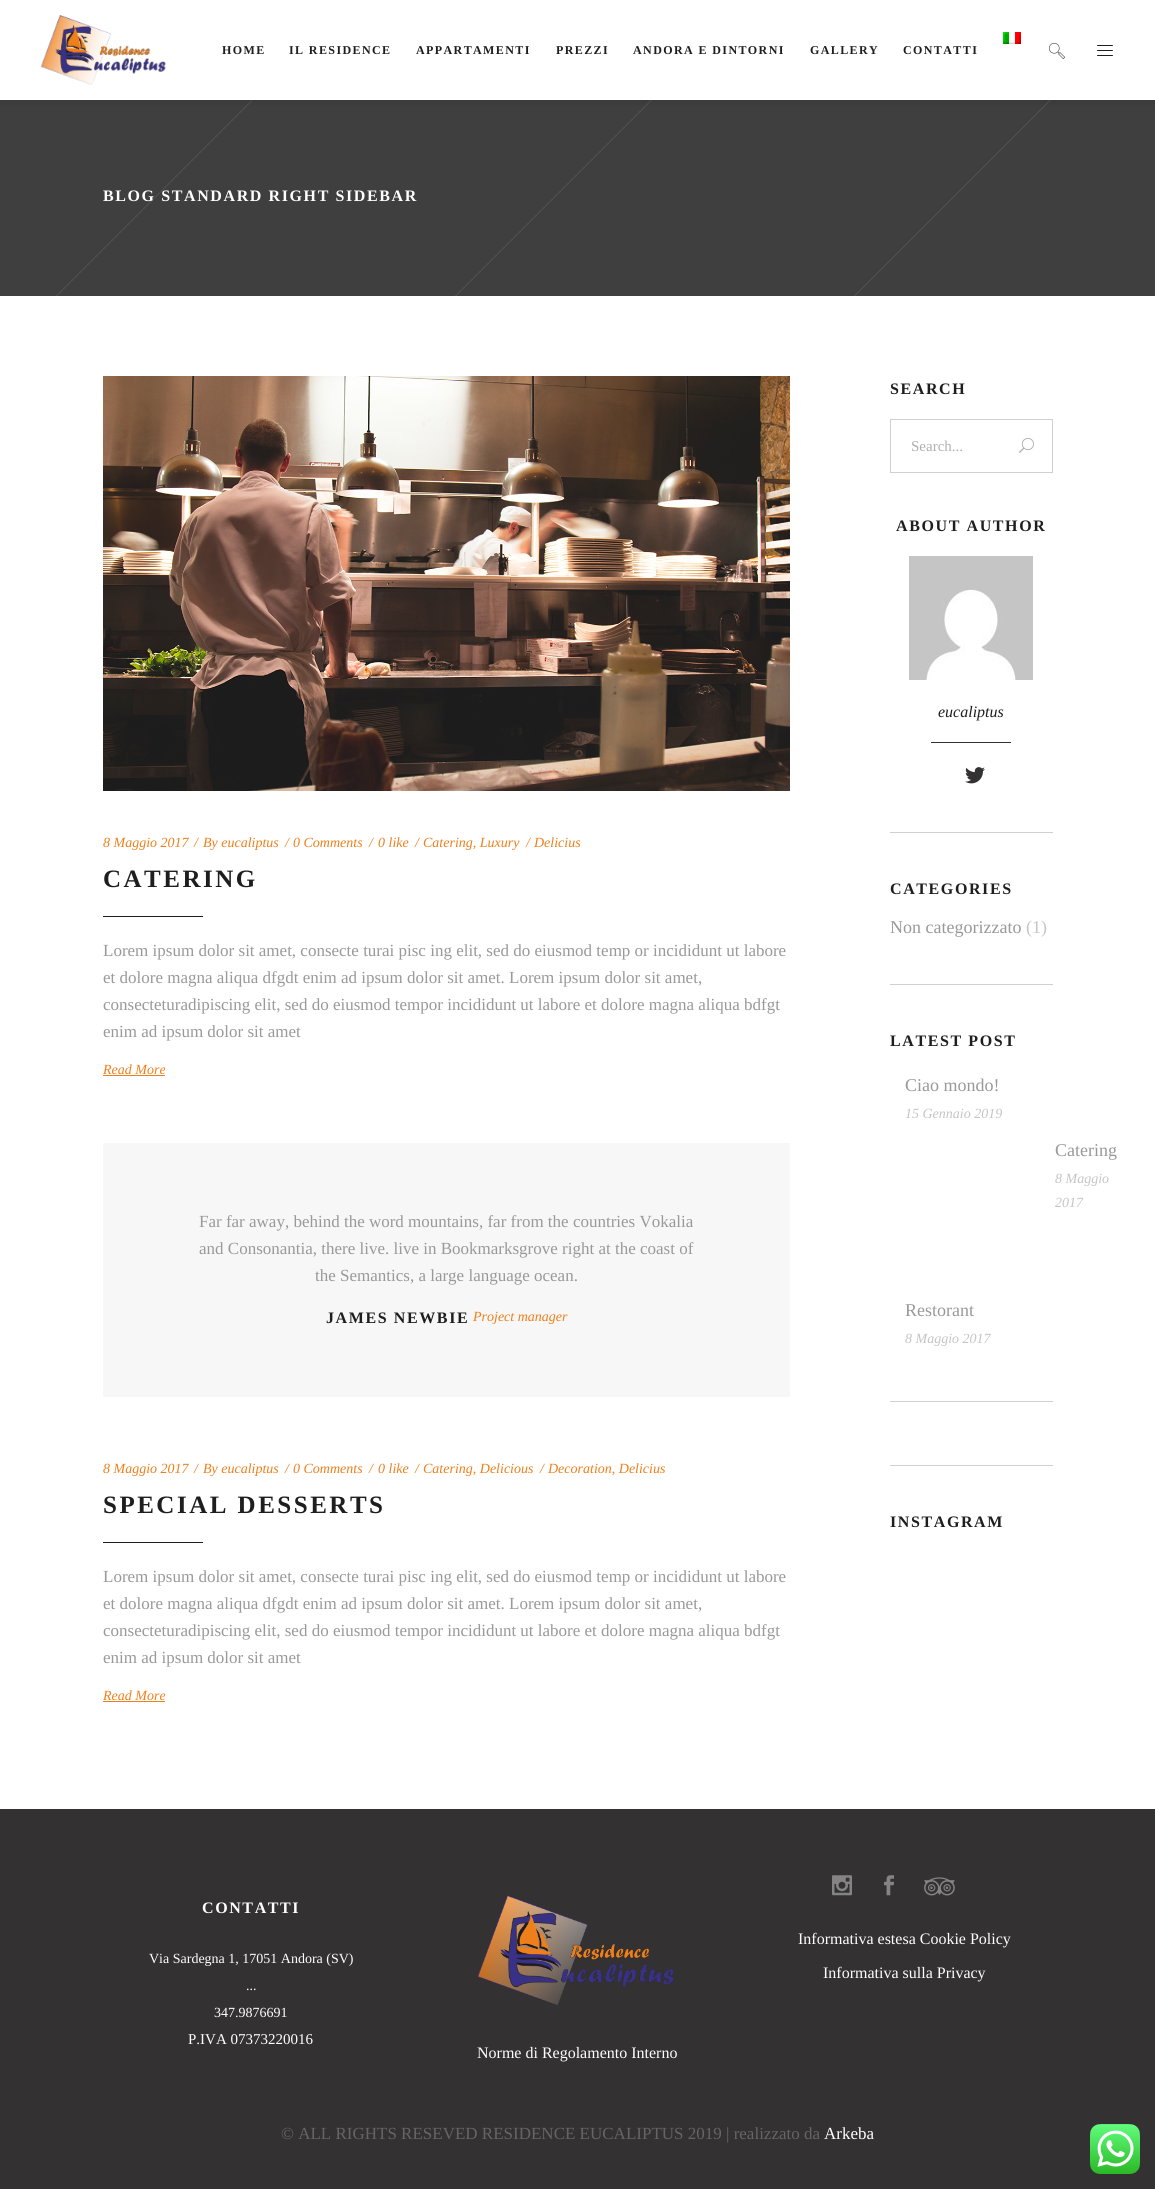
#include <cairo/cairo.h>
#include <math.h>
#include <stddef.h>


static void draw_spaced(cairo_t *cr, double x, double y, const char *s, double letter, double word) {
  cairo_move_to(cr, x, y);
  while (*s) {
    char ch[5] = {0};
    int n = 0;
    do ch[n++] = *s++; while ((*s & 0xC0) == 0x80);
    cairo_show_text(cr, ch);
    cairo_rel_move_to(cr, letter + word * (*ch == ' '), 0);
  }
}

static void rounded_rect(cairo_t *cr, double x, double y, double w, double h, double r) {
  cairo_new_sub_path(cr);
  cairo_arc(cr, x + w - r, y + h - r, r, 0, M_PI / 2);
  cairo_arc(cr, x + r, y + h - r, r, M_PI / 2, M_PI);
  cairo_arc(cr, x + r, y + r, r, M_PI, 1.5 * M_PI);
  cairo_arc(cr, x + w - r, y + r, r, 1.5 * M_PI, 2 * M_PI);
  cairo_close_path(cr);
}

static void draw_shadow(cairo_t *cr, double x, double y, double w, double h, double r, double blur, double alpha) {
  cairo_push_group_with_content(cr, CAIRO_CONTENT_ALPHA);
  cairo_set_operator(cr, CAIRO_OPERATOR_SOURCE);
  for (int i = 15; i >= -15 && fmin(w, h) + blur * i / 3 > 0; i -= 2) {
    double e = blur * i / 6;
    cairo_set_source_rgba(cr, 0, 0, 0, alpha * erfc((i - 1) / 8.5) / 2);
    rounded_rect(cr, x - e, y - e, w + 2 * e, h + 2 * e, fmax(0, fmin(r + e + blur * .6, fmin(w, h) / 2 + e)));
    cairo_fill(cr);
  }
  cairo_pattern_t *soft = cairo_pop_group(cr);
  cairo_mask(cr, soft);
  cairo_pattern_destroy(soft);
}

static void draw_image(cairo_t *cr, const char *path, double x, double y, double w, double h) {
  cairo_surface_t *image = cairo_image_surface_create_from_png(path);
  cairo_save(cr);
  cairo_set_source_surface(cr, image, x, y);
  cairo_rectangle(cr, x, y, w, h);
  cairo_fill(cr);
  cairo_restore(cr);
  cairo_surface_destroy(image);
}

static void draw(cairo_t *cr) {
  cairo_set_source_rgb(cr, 1, 1, 1);
  cairo_paint(cr);
  draw_image(cr, "images/5.png", 0, 100, 1155, 196);
  cairo_set_source_rgb(cr, 0, 0, 0);
  draw_shadow(cr, -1, 2, 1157, 102, 0, 2.5, 0.08);
  cairo_set_source_rgb(cr, 1, 1, 1);
  cairo_rectangle(cr, 0, 0, 1155, 100);
  cairo_fill(cr);
  draw_image(cr, "images/1.png", 40, 15, 126, 70);
  draw_image(cr, "images/2.png", 1003, 32, 18, 12);
  draw_image(cr, "images/3.png", 1049, 43, 16, 16);
  draw_image(cr, "images/4.png", 1097, 45, 16, 11);
  draw_image(cr, "images/6.png", 103, 376, 687, 415);
  cairo_set_source_rgb(cr, 30 / 255.0, 30 / 255.0, 30 / 255.0);
  cairo_rectangle(cr, 103, 916, 100, 1);
  cairo_fill(cr);
  cairo_set_source_rgb(cr, 239 / 255.0, 127 / 255.0, 26 / 255.0);
  cairo_rectangle(cr, 103, 1075, 62, 1);
  cairo_fill(cr);
  cairo_set_source_rgb(cr, 247 / 255.0, 247 / 255.0, 247 / 255.0);
  cairo_rectangle(cr, 103, 1143, 687, 254);
  cairo_fill(cr);
  cairo_set_source_rgb(cr, 30 / 255.0, 30 / 255.0, 30 / 255.0);
  cairo_rectangle(cr, 103, 1542, 100, 1);
  cairo_fill(cr);
  cairo_set_source_rgb(cr, 239 / 255.0, 127 / 255.0, 26 / 255.0);
  cairo_rectangle(cr, 103, 1701, 62, 1);
  cairo_fill(cr);
  cairo_rectangle(cr, 890.5, 419.5, 162, 53);
  cairo_set_source_rgb(cr, 208 / 255.0, 208 / 255.0, 208 / 255.0);
  cairo_set_line_width(cr, 1);
  cairo_stroke(cr);
  draw_image(cr, "images/7.png", 1019, 438, 15, 15);
  draw_image(cr, "images/8.png", 909, 556, 124, 124);
  cairo_set_source_rgb(cr, 51 / 255.0, 49 / 255.0, 50 / 255.0);
  cairo_rectangle(cr, 931, 742, 80, 1);
  cairo_fill(cr);
  draw_image(cr, "images/9.png", 965, 767, 20, 17);
  cairo_set_source_rgb(cr, 208 / 255.0, 208 / 255.0, 208 / 255.0);
  cairo_rectangle(cr, 890, 832, 163, 1);
  cairo_fill(cr);
  cairo_rectangle(cr, 890, 984, 163, 1);
  cairo_fill(cr);
  cairo_rectangle(cr, 890, 1401, 163, 1);
  cairo_fill(cr);
  cairo_rectangle(cr, 890, 1465, 163, 1);
  cairo_fill(cr);
  cairo_set_source_rgb(cr, 51 / 255.0, 49 / 255.0, 50 / 255.0);
  cairo_rectangle(cr, 0, 1809, 1155, 380);
  cairo_fill(cr);
  draw_image(cr, "images/10.png", 832, 1875, 20, 21);
  draw_image(cr, "images/11.png", 884, 1875, 10, 21);
  draw_image(cr, "images/12.png", 924, 1877, 31, 19);
  draw_image(cr, "images/13.png", 477, 1895, 197, 111);
  draw_image(cr, "images/14.png", 1090, 2124, 50, 50);
  cairo_select_font_face(cr, "Liberation Serif", CAIRO_FONT_SLANT_NORMAL, CAIRO_FONT_WEIGHT_BOLD);
  cairo_set_font_size(cr, 12);
  cairo_set_source_rgb(cr, 30 / 255.0, 30 / 255.0, 30 / 255.0);
  draw_spaced(cr, 222, 54, "HOME", 1.4, 0);
  draw_spaced(cr, 289, 54, "IL RESIDENCE", 1.4, 0);
  draw_spaced(cr, 416, 54, "APPARTAMENTI", 1.4, 0);
  draw_spaced(cr, 556, 54, "PREZZI", 1.4, 0);
  draw_spaced(cr, 633, 54, "ANDORA E DINTORNI", 1.4, 0);
  draw_spaced(cr, 810, 54, "GALLERY", 1.4, 0);
  draw_spaced(cr, 903, 54, "CONTATTI", 1.4, 0);
  cairo_set_font_size(cr, 16);
  cairo_set_source_rgb(cr, 1, 1, 1);
  draw_spaced(cr, 103, 201, "BLOG STANDARD RIGHT SIDEBAR", 1.6, 0);
  cairo_select_font_face(cr, "Liberation Serif", CAIRO_FONT_SLANT_ITALIC, CAIRO_FONT_WEIGHT_NORMAL);
  cairo_set_font_size(cr, 14);
  cairo_set_source_rgb(cr, 239 / 255.0, 127 / 255.0, 26 / 255.0);
  cairo_move_to(cr, 103, 847);
  cairo_show_text(cr, "8 Maggio 2017");
  cairo_move_to(cr, 194, 847);
  cairo_show_text(cr, "/");
  cairo_move_to(cr, 203, 847);
  cairo_show_text(cr, "By eucaliptus");
  cairo_move_to(cr, 285, 847);
  cairo_show_text(cr, "/");
  cairo_move_to(cr, 293, 847);
  cairo_show_text(cr, "0 Comments");
  cairo_move_to(cr, 369, 847);
  cairo_show_text(cr, "/");
  cairo_move_to(cr, 378, 847);
  cairo_show_text(cr, "0 like");
  cairo_move_to(cr, 415, 847);
  cairo_show_text(cr, "/");
  cairo_move_to(cr, 423, 847);
  cairo_show_text(cr, "Catering, Luxury");
  cairo_move_to(cr, 526, 847);
  cairo_show_text(cr, "/");
  cairo_move_to(cr, 534, 847);
  cairo_show_text(cr, "Delicius");
  cairo_select_font_face(cr, "Liberation Serif", CAIRO_FONT_SLANT_NORMAL, CAIRO_FONT_WEIGHT_BOLD);
  cairo_set_font_size(cr, 25);
  cairo_set_source_rgb(cr, 30 / 255.0, 30 / 255.0, 30 / 255.0);
  draw_spaced(cr, 103, 887, "CATERING", 2.5, 0);
  cairo_select_font_face(cr, "Liberation Serif", CAIRO_FONT_SLANT_NORMAL, CAIRO_FONT_WEIGHT_NORMAL);
  cairo_set_font_size(cr, 17);
  cairo_set_source_rgb(cr, 153 / 255.0, 153 / 255.0, 153 / 255.0);
  cairo_move_to(cr, 103, 956);
  cairo_show_text(cr, "Lorem ipsum dolor sit amet, consecte turai pisc ing elit, sed do eiusmod temp or incididunt ut labore");
  cairo_move_to(cr, 103, 983);
  cairo_show_text(cr, "et dolore magna aliqua dfgdt enim ad ipsum dolor sit amet. Lorem ipsum dolor sit amet,");
  cairo_move_to(cr, 103, 1010);
  cairo_show_text(cr, "consecteturadipiscing elit, sed do eiusmod tempor incididunt ut labore et dolore magna aliqua bdfgt");
  cairo_move_to(cr, 103, 1037);
  cairo_show_text(cr, "enim ad ipsum dolor sit amet");
  cairo_select_font_face(cr, "Liberation Serif", CAIRO_FONT_SLANT_ITALIC, CAIRO_FONT_WEIGHT_NORMAL);
  cairo_set_font_size(cr, 14);
  cairo_set_source_rgb(cr, 239 / 255.0, 127 / 255.0, 26 / 255.0);
  cairo_move_to(cr, 103, 1074);
  cairo_show_text(cr, "Read More");
  cairo_select_font_face(cr, "Liberation Serif", CAIRO_FONT_SLANT_NORMAL, CAIRO_FONT_WEIGHT_NORMAL);
  cairo_set_font_size(cr, 17);
  cairo_set_source_rgb(cr, 153 / 255.0, 153 / 255.0, 153 / 255.0);
  cairo_move_to(cr, 199, 1227);
  cairo_show_text(cr, "Far far away, behind the word mountains, far from the countries Vokalia");
  cairo_move_to(cr, 199, 1254);
  cairo_show_text(cr, "and Consonantia, there live. live in Bookmarksgrove right at the coast of");
  cairo_move_to(cr, 315, 1281);
  cairo_show_text(cr, "the Semantics, a large language ocean.");
  cairo_select_font_face(cr, "Liberation Serif", CAIRO_FONT_SLANT_NORMAL, CAIRO_FONT_WEIGHT_BOLD);
  cairo_set_font_size(cr, 16);
  cairo_set_source_rgb(cr, 30 / 255.0, 30 / 255.0, 30 / 255.0);
  draw_spaced(cr, 326, 1323, "JAMES NEWBIE", 1.6, 0);
  cairo_select_font_face(cr, "Liberation Serif", CAIRO_FONT_SLANT_ITALIC, CAIRO_FONT_WEIGHT_NORMAL);
  cairo_set_font_size(cr, 14);
  cairo_set_source_rgb(cr, 239 / 255.0, 127 / 255.0, 26 / 255.0);
  cairo_move_to(cr, 473, 1321);
  cairo_show_text(cr, "Project manager");
  cairo_move_to(cr, 103, 1473);
  cairo_show_text(cr, "8 Maggio 2017");
  cairo_move_to(cr, 194, 1473);
  cairo_show_text(cr, "/");
  cairo_move_to(cr, 203, 1473);
  cairo_show_text(cr, "By eucaliptus");
  cairo_move_to(cr, 285, 1473);
  cairo_show_text(cr, "/");
  cairo_move_to(cr, 293, 1473);
  cairo_show_text(cr, "0 Comments");
  cairo_move_to(cr, 369, 1473);
  cairo_show_text(cr, "/");
  cairo_move_to(cr, 378, 1473);
  cairo_show_text(cr, "0 like");
  cairo_move_to(cr, 415, 1473);
  cairo_show_text(cr, "/");
  cairo_move_to(cr, 423, 1473);
  cairo_show_text(cr, "Catering, Delicious");
  cairo_move_to(cr, 540, 1473);
  cairo_show_text(cr, "/");
  cairo_move_to(cr, 548, 1473);
  cairo_show_text(cr, "Decoration, Delicius");
  cairo_select_font_face(cr, "Liberation Serif", CAIRO_FONT_SLANT_NORMAL, CAIRO_FONT_WEIGHT_BOLD);
  cairo_set_font_size(cr, 25);
  cairo_set_source_rgb(cr, 30 / 255.0, 30 / 255.0, 30 / 255.0);
  draw_spaced(cr, 103, 1513, "SPECIAL DESSERTS", 2.5, 0);
  cairo_select_font_face(cr, "Liberation Serif", CAIRO_FONT_SLANT_NORMAL, CAIRO_FONT_WEIGHT_NORMAL);
  cairo_set_font_size(cr, 17);
  cairo_set_source_rgb(cr, 153 / 255.0, 153 / 255.0, 153 / 255.0);
  cairo_move_to(cr, 103, 1582);
  cairo_show_text(cr, "Lorem ipsum dolor sit amet, consecte turai pisc ing elit, sed do eiusmod temp or incididunt ut labore");
  cairo_move_to(cr, 103, 1609);
  cairo_show_text(cr, "et dolore magna aliqua dfgdt enim ad ipsum dolor sit amet. Lorem ipsum dolor sit amet,");
  cairo_move_to(cr, 103, 1636);
  cairo_show_text(cr, "consecteturadipiscing elit, sed do eiusmod tempor incididunt ut labore et dolore magna aliqua bdfgt");
  cairo_move_to(cr, 103, 1663);
  cairo_show_text(cr, "enim ad ipsum dolor sit amet");
  cairo_select_font_face(cr, "Liberation Serif", CAIRO_FONT_SLANT_ITALIC, CAIRO_FONT_WEIGHT_NORMAL);
  cairo_set_font_size(cr, 14);
  cairo_set_source_rgb(cr, 239 / 255.0, 127 / 255.0, 26 / 255.0);
  cairo_move_to(cr, 103, 1700);
  cairo_show_text(cr, "Read More");
  cairo_select_font_face(cr, "Liberation Serif", CAIRO_FONT_SLANT_NORMAL, CAIRO_FONT_WEIGHT_BOLD);
  cairo_set_font_size(cr, 16);
  cairo_set_source_rgb(cr, 30 / 255.0, 30 / 255.0, 30 / 255.0);
  draw_spaced(cr, 890, 394, "SEARCH", 1.6, 0);
  cairo_select_font_face(cr, "Liberation Serif", CAIRO_FONT_SLANT_NORMAL, CAIRO_FONT_WEIGHT_NORMAL);
  cairo_set_font_size(cr, 15);
  cairo_set_source_rgb(cr, 175 / 255.0, 175 / 255.0, 175 / 255.0);
  cairo_move_to(cr, 911, 451);
  cairo_show_text(cr, "Search...");
  cairo_select_font_face(cr, "Liberation Serif", CAIRO_FONT_SLANT_NORMAL, CAIRO_FONT_WEIGHT_BOLD);
  cairo_set_font_size(cr, 16);
  cairo_set_source_rgb(cr, 30 / 255.0, 30 / 255.0, 30 / 255.0);
  draw_spaced(cr, 896, 531, "ABOUT AUTHOR", 1.6, 0);
  cairo_select_font_face(cr, "Liberation Serif", CAIRO_FONT_SLANT_ITALIC, CAIRO_FONT_WEIGHT_NORMAL);
  cairo_move_to(cr, 938, 717);
  cairo_show_text(cr, "eucaliptus");
  cairo_select_font_face(cr, "Liberation Serif", CAIRO_FONT_SLANT_NORMAL, CAIRO_FONT_WEIGHT_BOLD);
  draw_spaced(cr, 890, 894, "CATEGORIES", 1.6, 0);
  cairo_select_font_face(cr, "Liberation Serif", CAIRO_FONT_SLANT_NORMAL, CAIRO_FONT_WEIGHT_NORMAL);
  cairo_set_font_size(cr, 18);
  cairo_set_source_rgb(cr, 153 / 255.0, 153 / 255.0, 153 / 255.0);
  cairo_move_to(cr, 890, 933);
  cairo_show_text(cr, "Non categorizzato");
  cairo_set_source_rgb(cr, 197 / 255.0, 197 / 255.0, 197 / 255.0);
  cairo_move_to(cr, 1026, 933);
  cairo_show_text(cr, "(1)");
  cairo_select_font_face(cr, "Liberation Serif", CAIRO_FONT_SLANT_NORMAL, CAIRO_FONT_WEIGHT_BOLD);
  cairo_set_font_size(cr, 16);
  cairo_set_source_rgb(cr, 30 / 255.0, 30 / 255.0, 30 / 255.0);
  draw_spaced(cr, 890, 1046, "LATEST POST", 1.6, 0);
  cairo_select_font_face(cr, "Liberation Serif", CAIRO_FONT_SLANT_NORMAL, CAIRO_FONT_WEIGHT_NORMAL);
  cairo_set_font_size(cr, 18);
  cairo_set_source_rgb(cr, 153 / 255.0, 153 / 255.0, 153 / 255.0);
  cairo_move_to(cr, 905, 1091);
  cairo_show_text(cr, "Ciao mondo!");
  cairo_select_font_face(cr, "Liberation Serif", CAIRO_FONT_SLANT_ITALIC, CAIRO_FONT_WEIGHT_NORMAL);
  cairo_set_font_size(cr, 14);
  cairo_set_source_rgb(cr, 197 / 255.0, 197 / 255.0, 197 / 255.0);
  cairo_move_to(cr, 905, 1118);
  cairo_show_text(cr, "15 Gennaio 2019");
  cairo_select_font_face(cr, "Liberation Serif", CAIRO_FONT_SLANT_NORMAL, CAIRO_FONT_WEIGHT_NORMAL);
  cairo_set_font_size(cr, 18);
  cairo_set_source_rgb(cr, 153 / 255.0, 153 / 255.0, 153 / 255.0);
  cairo_move_to(cr, 1055, 1156);
  cairo_show_text(cr, "Catering");
  cairo_select_font_face(cr, "Liberation Serif", CAIRO_FONT_SLANT_ITALIC, CAIRO_FONT_WEIGHT_NORMAL);
  cairo_set_font_size(cr, 14);
  cairo_set_source_rgb(cr, 197 / 255.0, 197 / 255.0, 197 / 255.0);
  cairo_move_to(cr, 1055, 1183);
  cairo_show_text(cr, "8 Maggio");
  cairo_move_to(cr, 1055, 1207);
  cairo_show_text(cr, "2017");
  cairo_select_font_face(cr, "Liberation Serif", CAIRO_FONT_SLANT_NORMAL, CAIRO_FONT_WEIGHT_NORMAL);
  cairo_set_font_size(cr, 18);
  cairo_set_source_rgb(cr, 153 / 255.0, 153 / 255.0, 153 / 255.0);
  cairo_move_to(cr, 905, 1316);
  cairo_show_text(cr, "Restorant");
  cairo_select_font_face(cr, "Liberation Serif", CAIRO_FONT_SLANT_ITALIC, CAIRO_FONT_WEIGHT_NORMAL);
  cairo_set_font_size(cr, 14);
  cairo_set_source_rgb(cr, 197 / 255.0, 197 / 255.0, 197 / 255.0);
  cairo_move_to(cr, 905, 1343);
  cairo_show_text(cr, "8 Maggio 2017");
  cairo_select_font_face(cr, "Liberation Serif", CAIRO_FONT_SLANT_NORMAL, CAIRO_FONT_WEIGHT_BOLD);
  cairo_set_font_size(cr, 16);
  cairo_set_source_rgb(cr, 30 / 255.0, 30 / 255.0, 30 / 255.0);
  draw_spaced(cr, 890, 1527, "INSTAGRAM", 1.6, 0);
  cairo_set_source_rgb(cr, 1, 1, 1);
  draw_spaced(cr, 202, 1913, "CONTATTI", 1.6, 0);
  cairo_select_font_face(cr, "Liberation Serif", CAIRO_FONT_SLANT_NORMAL, CAIRO_FONT_WEIGHT_NORMAL);
  cairo_set_font_size(cr, 14);
  cairo_move_to(cr, 149, 1963);
  cairo_show_text(cr, "Via Sardegna 1, 17051 Andora (SV)");
  cairo_move_to(cr, 246, 1990);
  cairo_show_text(cr, "...");
  cairo_move_to(cr, 214, 2017);
  cairo_show_text(cr, "347.9876691");
  cairo_set_font_size(cr, 15);
  cairo_move_to(cr, 188, 2044);
  cairo_show_text(cr, "P.IVA 07373220016");
  cairo_set_font_size(cr, 16);
  cairo_move_to(cr, 798, 1944);
  cairo_show_text(cr, "Informativa estesa Cookie Policy");
  cairo_move_to(cr, 823, 1978);
  cairo_show_text(cr, "Informativa sulla Privacy");
  cairo_move_to(cr, 477, 2058);
  cairo_show_text(cr, "Norme di Regolamento Interno");
  cairo_set_font_size(cr, 17);
  cairo_set_source_rgb(cr, 102 / 255.0, 101 / 255.0, 101 / 255.0);
  cairo_move_to(cr, 281, 2139);
  cairo_show_text(cr, "© ALL RIGHTS RESEVED RESIDENCE EUCALIPTUS 2019 | realizzato da");
  cairo_set_source_rgb(cr, 1, 1, 1);
  cairo_move_to(cr, 824, 2139);
  cairo_show_text(cr, "Arkeba");
}

int main(void) {
  cairo_surface_t *surface = cairo_image_surface_create(CAIRO_FORMAT_RGB24, 1155, 2189);
  cairo_t *cr = cairo_create(surface);
  cairo_font_options_t *options = cairo_font_options_create();
  cairo_font_options_set_hint_metrics(options, CAIRO_HINT_METRICS_OFF);
  cairo_font_options_set_hint_style(options, CAIRO_HINT_STYLE_NONE);
  cairo_set_font_options(cr, options);
  cairo_set_miter_limit(cr, 4);
  draw(cr);
  cairo_surface_write_to_png(surface, "out.png");
  cairo_font_options_destroy(options);
  cairo_destroy(cr);
  cairo_surface_destroy(surface);
  return 0;
}
